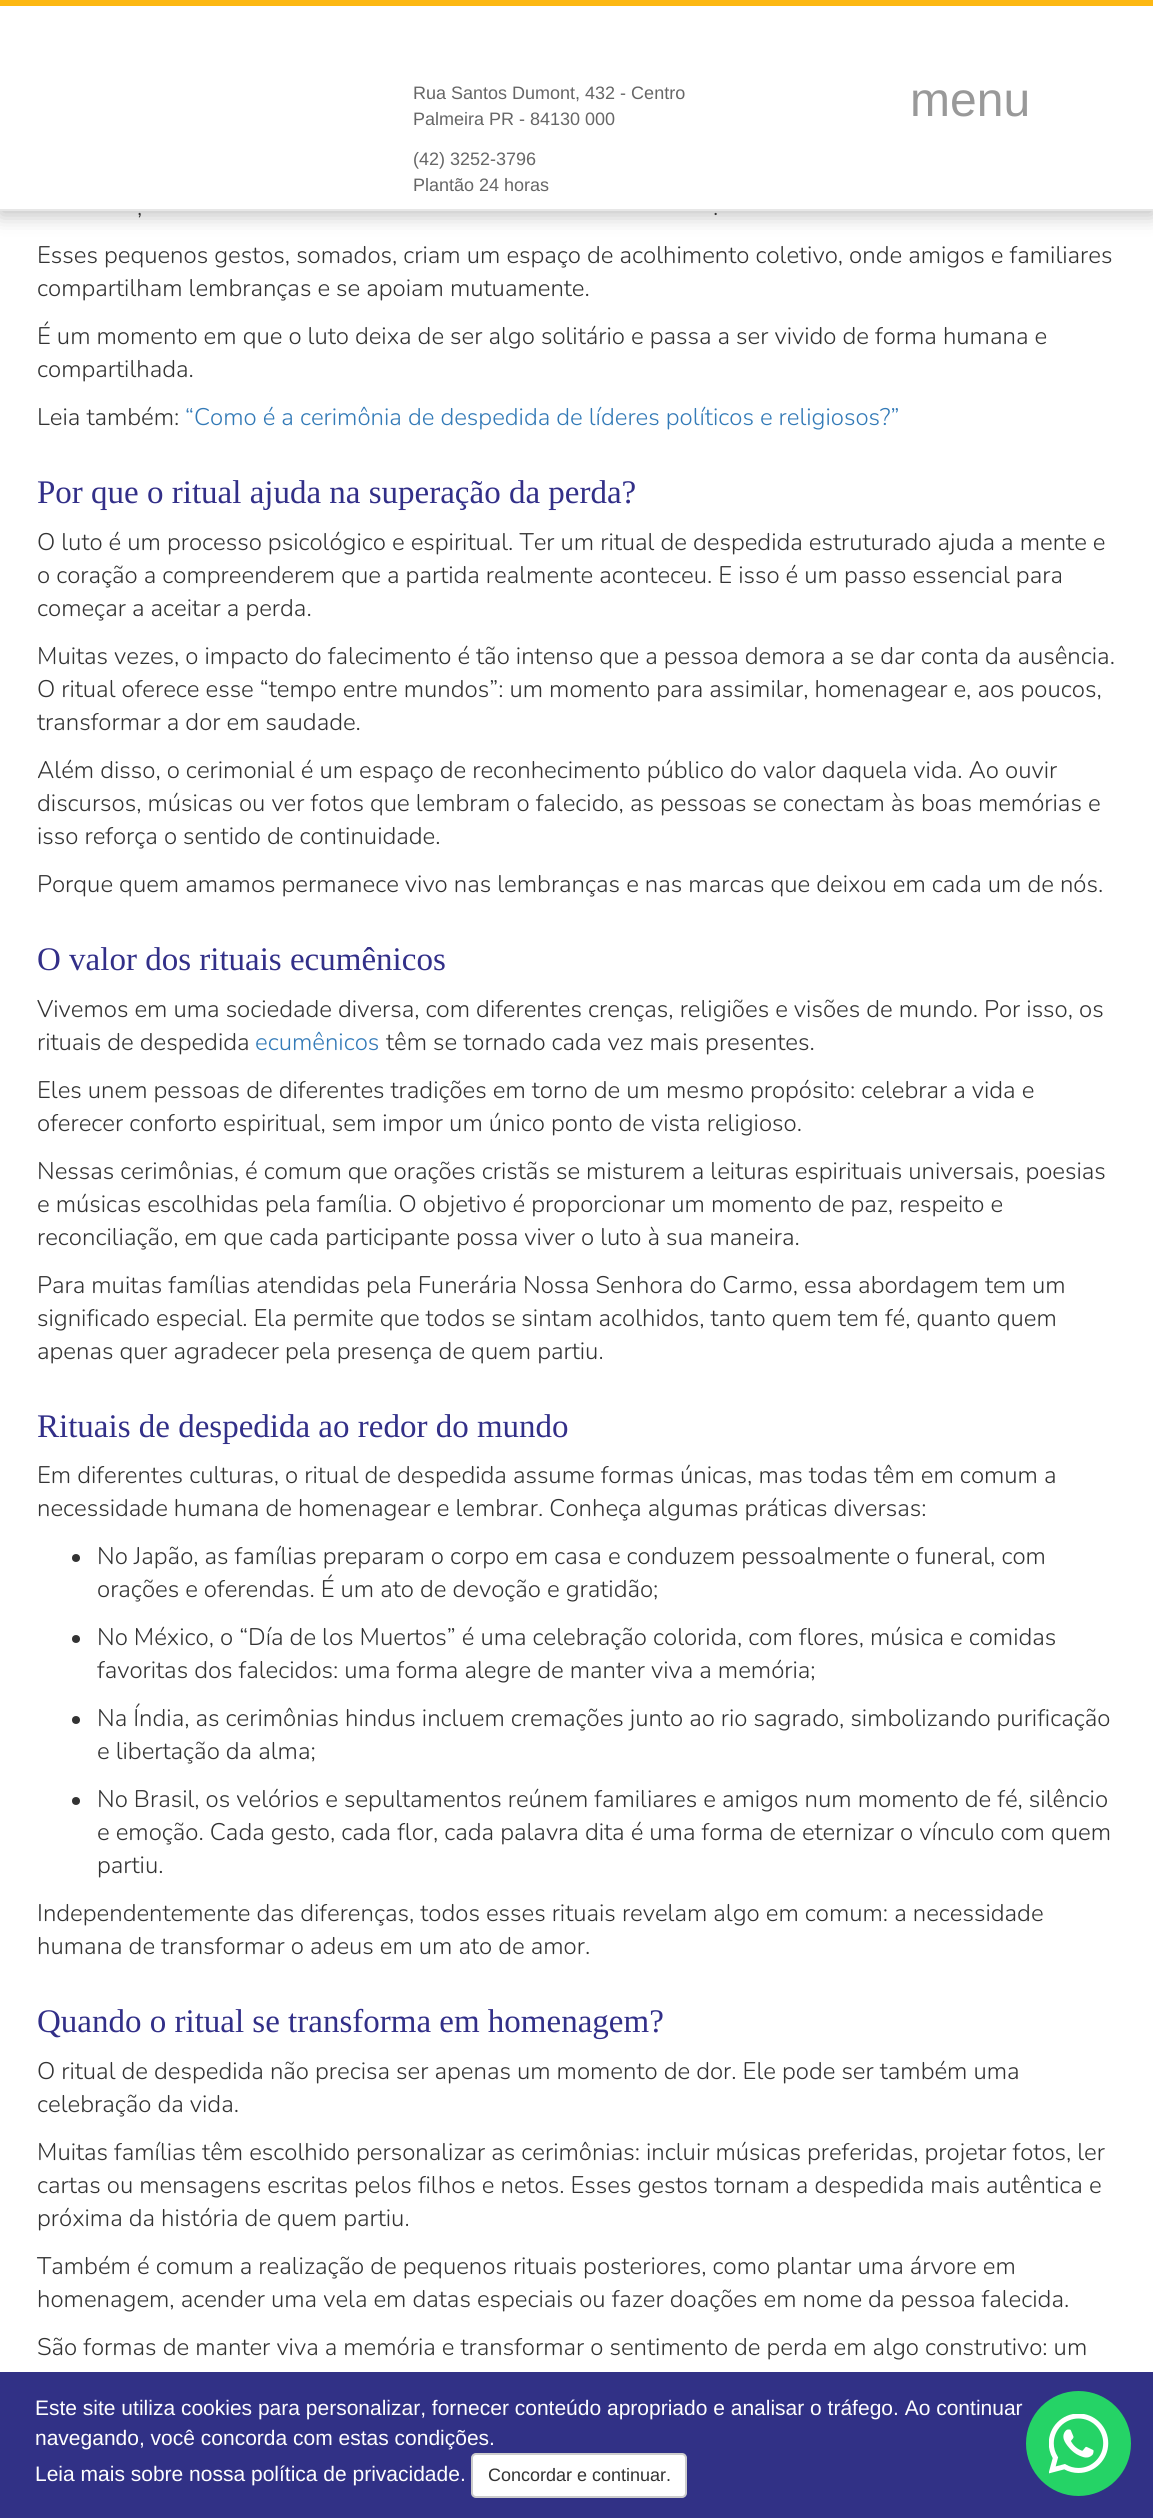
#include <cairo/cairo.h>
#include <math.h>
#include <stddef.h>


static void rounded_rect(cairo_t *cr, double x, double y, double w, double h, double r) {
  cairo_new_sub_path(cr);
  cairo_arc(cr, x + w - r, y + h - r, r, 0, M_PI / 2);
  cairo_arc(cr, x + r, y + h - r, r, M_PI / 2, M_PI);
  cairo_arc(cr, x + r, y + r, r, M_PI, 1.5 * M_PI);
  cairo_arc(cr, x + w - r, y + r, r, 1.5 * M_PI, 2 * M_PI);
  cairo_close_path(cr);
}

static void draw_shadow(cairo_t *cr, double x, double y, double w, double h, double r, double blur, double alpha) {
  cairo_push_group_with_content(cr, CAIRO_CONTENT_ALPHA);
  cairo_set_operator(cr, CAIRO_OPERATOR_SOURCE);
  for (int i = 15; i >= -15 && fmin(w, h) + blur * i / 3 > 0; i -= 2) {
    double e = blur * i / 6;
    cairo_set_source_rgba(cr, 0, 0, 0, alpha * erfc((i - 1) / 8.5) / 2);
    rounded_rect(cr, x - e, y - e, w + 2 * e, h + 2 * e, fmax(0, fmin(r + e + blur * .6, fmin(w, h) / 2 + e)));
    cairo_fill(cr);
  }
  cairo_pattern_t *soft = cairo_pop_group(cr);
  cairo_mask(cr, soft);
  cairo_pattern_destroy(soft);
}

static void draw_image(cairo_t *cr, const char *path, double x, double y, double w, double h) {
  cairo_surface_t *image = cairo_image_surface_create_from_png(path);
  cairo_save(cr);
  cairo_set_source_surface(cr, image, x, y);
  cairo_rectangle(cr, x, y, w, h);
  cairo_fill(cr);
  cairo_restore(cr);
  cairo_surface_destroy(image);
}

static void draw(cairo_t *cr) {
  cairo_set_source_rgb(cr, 1, 1, 1);
  cairo_paint(cr);
  cairo_set_source_rgb(cr, 50 / 255.0, 50 / 255.0, 50 / 255.0);
  draw_shadow(cr, 0, 5, 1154, 210, 0, 10, 0.32);
  cairo_set_source_rgb(cr, 1, 1, 1);
  cairo_rectangle(cr, 0, 6, 1153, 203);
  cairo_fill(cr);
  cairo_set_source_rgb(cr, 253 / 255.0, 184 / 255.0, 18 / 255.0);
  cairo_rectangle(cr, 0, 0, 1153, 6);
  cairo_fill(cr);
  cairo_set_source_rgb(cr, 231 / 255.0, 231 / 255.0, 231 / 255.0);
  cairo_rectangle(cr, 0, 209, 1153, 2);
  cairo_fill(cr);
  cairo_set_source_rgb(cr, 51 / 255.0, 51 / 255.0, 51 / 255.0);
  cairo_arc(cr, 76, 1558, 4, 0, 2 * M_PI);
  cairo_fill(cr);
  cairo_arc(cr, 76, 1639, 4, 0, 2 * M_PI);
  cairo_fill(cr);
  cairo_arc(cr, 76, 1720, 4, 0, 2 * M_PI);
  cairo_fill(cr);
  cairo_arc(cr, 76, 1801, 4, 0, 2 * M_PI);
  cairo_fill(cr);
  cairo_set_source_rgb(cr, 49 / 255.0, 49 / 255.0, 134 / 255.0);
  cairo_rectangle(cr, 0, 2372, 1153, 146);
  cairo_fill(cr);
  cairo_set_source_rgb(cr, 1, 1, 1);
  rounded_rect(cr, 472, 2454, 214, 43, 4);
  cairo_fill_preserve(cr);
  cairo_set_source_rgb(cr, 204 / 255.0, 204 / 255.0, 204 / 255.0);
  cairo_stroke(cr);
  cairo_set_source_rgb(cr, 37 / 255.0, 211 / 255.0, 102 / 255.0);
  cairo_arc(cr, 1078.5, 2443.5, 52.5, 0, 2 * M_PI);
  cairo_fill(cr);
  draw_image(cr, "images/1.png", 1049, 2414, 60, 60);
  cairo_select_font_face(cr, "Liberation Sans", CAIRO_FONT_SLANT_NORMAL, CAIRO_FONT_WEIGHT_NORMAL);
  cairo_set_font_size(cr, 18);
  cairo_set_source_rgb(cr, 102 / 255.0, 102 / 255.0, 102 / 255.0);
  cairo_move_to(cr, 413, 99);
  cairo_show_text(cr, "Rua Santos Dumont, 432 - Centro");
  cairo_move_to(cr, 413, 125);
  cairo_show_text(cr, "Palmeira PR - 84130 000");
  cairo_move_to(cr, 413, 165);
  cairo_show_text(cr, "(42) 3252-3796");
  cairo_move_to(cr, 413, 191);
  cairo_show_text(cr, "Plantão 24 horas");
  cairo_set_font_size(cr, 48);
  cairo_set_source_rgb(cr, 153 / 255.0, 153 / 255.0, 153 / 255.0);
  cairo_move_to(cr, 910, 116);
  cairo_show_text(cr, "menu");
  cairo_select_font_face(cr, "Nunito Light", CAIRO_FONT_SLANT_NORMAL, CAIRO_FONT_WEIGHT_NORMAL);
  cairo_set_font_size(cr, 24);
  cairo_set_source_rgb(cr, 51 / 255.0, 51 / 255.0, 51 / 255.0);
  cairo_move_to(cr, 137, 215);
  cairo_show_text(cr, ",");
  cairo_move_to(cr, 713, 215);
  cairo_show_text(cr, ".");
  cairo_move_to(cr, 37, 263);
  cairo_show_text(cr, "Esses pequenos gestos, somados, criam um espaço de acolhimento coletivo, onde amigos e familiares");
  cairo_move_to(cr, 37, 296);
  cairo_show_text(cr, "compartilham lembranças e se apoiam mutuamente.");
  cairo_move_to(cr, 37, 344);
  cairo_show_text(cr, "É um momento em que o luto deixa de ser algo solitário e passa a ser vivido de forma humana e");
  cairo_move_to(cr, 37, 377);
  cairo_show_text(cr, "compartilhada.");
  cairo_move_to(cr, 37, 425);
  cairo_show_text(cr, "Leia também:");
  cairo_set_source_rgb(cr, 51 / 255.0, 122 / 255.0, 183 / 255.0);
  cairo_move_to(cr, 185, 425);
  cairo_show_text(cr, "“Como é a cerimônia de despedida de líderes políticos e religiosos?”");
  cairo_select_font_face(cr, "Liberation Serif", CAIRO_FONT_SLANT_NORMAL, CAIRO_FONT_WEIGHT_NORMAL);
  cairo_set_font_size(cr, 33);
  cairo_set_source_rgb(cr, 50 / 255.0, 47 / 255.0, 136 / 255.0);
  cairo_move_to(cr, 37, 503);
  cairo_show_text(cr, "Por que o ritual ajuda na superação da perda?");
  cairo_select_font_face(cr, "Nunito Light", CAIRO_FONT_SLANT_NORMAL, CAIRO_FONT_WEIGHT_NORMAL);
  cairo_set_font_size(cr, 24);
  cairo_set_source_rgb(cr, 51 / 255.0, 51 / 255.0, 51 / 255.0);
  cairo_move_to(cr, 37, 550);
  cairo_show_text(cr, "O luto é um processo psicológico e espiritual. Ter um ritual de despedida estruturado ajuda a mente e");
  cairo_move_to(cr, 37, 583);
  cairo_show_text(cr, "o coração a compreenderem que a partida realmente aconteceu. E isso é um passo essencial para");
  cairo_move_to(cr, 37, 616);
  cairo_show_text(cr, "começar a aceitar a perda.");
  cairo_move_to(cr, 37, 664);
  cairo_show_text(cr, "Muitas vezes, o impacto do falecimento é tão intenso que a pessoa demora a se dar conta da ausência.");
  cairo_move_to(cr, 37, 697);
  cairo_show_text(cr, "O ritual oferece esse “tempo entre mundos”: um momento para assimilar, homenagear e, aos poucos,");
  cairo_move_to(cr, 37, 730);
  cairo_show_text(cr, "transformar a dor em saudade.");
  cairo_move_to(cr, 37, 778);
  cairo_show_text(cr, "Além disso, o cerimonial é um espaço de reconhecimento público do valor daquela vida. Ao ouvir");
  cairo_move_to(cr, 37, 811);
  cairo_show_text(cr, "discursos, músicas ou ver fotos que lembram o falecido, as pessoas se conectam às boas memórias e");
  cairo_move_to(cr, 37, 844);
  cairo_show_text(cr, "isso reforça o sentido de continuidade.");
  cairo_move_to(cr, 37, 892);
  cairo_show_text(cr, "Porque quem amamos permanece vivo nas lembranças e nas marcas que deixou em cada um de nós.");
  cairo_select_font_face(cr, "Liberation Serif", CAIRO_FONT_SLANT_NORMAL, CAIRO_FONT_WEIGHT_NORMAL);
  cairo_set_font_size(cr, 33);
  cairo_set_source_rgb(cr, 50 / 255.0, 47 / 255.0, 136 / 255.0);
  cairo_move_to(cr, 37, 970);
  cairo_show_text(cr, "O valor dos rituais ecumênicos");
  cairo_select_font_face(cr, "Nunito Light", CAIRO_FONT_SLANT_NORMAL, CAIRO_FONT_WEIGHT_NORMAL);
  cairo_set_font_size(cr, 24);
  cairo_set_source_rgb(cr, 51 / 255.0, 51 / 255.0, 51 / 255.0);
  cairo_move_to(cr, 37, 1017);
  cairo_show_text(cr, "Vivemos em uma sociedade diversa, com diferentes crenças, religiões e visões de mundo. Por isso, os");
  cairo_move_to(cr, 37, 1050);
  cairo_show_text(cr, "rituais de despedida");
  cairo_set_source_rgb(cr, 51 / 255.0, 122 / 255.0, 183 / 255.0);
  cairo_move_to(cr, 255, 1050);
  cairo_show_text(cr, "ecumênicos");
  cairo_set_source_rgb(cr, 51 / 255.0, 51 / 255.0, 51 / 255.0);
  cairo_move_to(cr, 386, 1050);
  cairo_show_text(cr, "têm se tornado cada vez mais presentes.");
  cairo_move_to(cr, 37, 1098);
  cairo_show_text(cr, "Eles unem pessoas de diferentes tradições em torno de um mesmo propósito: celebrar a vida e");
  cairo_move_to(cr, 37, 1131);
  cairo_show_text(cr, "oferecer conforto espiritual, sem impor um único ponto de vista religioso.");
  cairo_move_to(cr, 37, 1179);
  cairo_show_text(cr, "Nessas cerimônias, é comum que orações cristãs se misturem a leituras espirituais universais, poesias");
  cairo_move_to(cr, 37, 1212);
  cairo_show_text(cr, "e músicas escolhidas pela família. O objetivo é proporcionar um momento de paz, respeito e");
  cairo_move_to(cr, 37, 1245);
  cairo_show_text(cr, "reconciliação, em que cada participante possa viver o luto à sua maneira.");
  cairo_move_to(cr, 37, 1293);
  cairo_show_text(cr, "Para muitas famílias atendidas pela Funerária Nossa Senhora do Carmo, essa abordagem tem um");
  cairo_move_to(cr, 37, 1326);
  cairo_show_text(cr, "significado especial. Ela permite que todos se sintam acolhidos, tanto quem tem fé, quanto quem");
  cairo_move_to(cr, 37, 1359);
  cairo_show_text(cr, "apenas quer agradecer pela presença de quem partiu.");
  cairo_select_font_face(cr, "Liberation Serif", CAIRO_FONT_SLANT_NORMAL, CAIRO_FONT_WEIGHT_NORMAL);
  cairo_set_font_size(cr, 33);
  cairo_set_source_rgb(cr, 50 / 255.0, 47 / 255.0, 136 / 255.0);
  cairo_move_to(cr, 37, 1437);
  cairo_show_text(cr, "Rituais de despedida ao redor do mundo");
  cairo_select_font_face(cr, "Nunito Light", CAIRO_FONT_SLANT_NORMAL, CAIRO_FONT_WEIGHT_NORMAL);
  cairo_set_font_size(cr, 24);
  cairo_set_source_rgb(cr, 51 / 255.0, 51 / 255.0, 51 / 255.0);
  cairo_move_to(cr, 37, 1483);
  cairo_show_text(cr, "Em diferentes culturas, o ritual de despedida assume formas únicas, mas todas têm em comum a");
  cairo_move_to(cr, 37, 1516);
  cairo_show_text(cr, "necessidade humana de homenagear e lembrar. Conheça algumas práticas diversas:");
  cairo_move_to(cr, 97, 1564);
  cairo_show_text(cr, "No Japão, as famílias preparam o corpo em casa e conduzem pessoalmente o funeral, com");
  cairo_move_to(cr, 97, 1597);
  cairo_show_text(cr, "orações e oferendas. É um ato de devoção e gratidão;");
  cairo_move_to(cr, 97, 1645);
  cairo_show_text(cr, "No México, o “Día de los Muertos” é uma celebração colorida, com flores, música e comidas");
  cairo_move_to(cr, 97, 1678);
  cairo_show_text(cr, "favoritas dos falecidos: uma forma alegre de manter viva a memória;");
  cairo_move_to(cr, 97, 1726);
  cairo_show_text(cr, "Na Índia, as cerimônias hindus incluem cremações junto ao rio sagrado, simbolizando purificação");
  cairo_move_to(cr, 97, 1759);
  cairo_show_text(cr, "e libertação da alma;");
  cairo_move_to(cr, 97, 1807);
  cairo_show_text(cr, "No Brasil, os velórios e sepultamentos reúnem familiares e amigos num momento de fé, silêncio");
  cairo_move_to(cr, 97, 1840);
  cairo_show_text(cr, "e emoção. Cada gesto, cada flor, cada palavra dita é uma forma de eternizar o vínculo com quem");
  cairo_move_to(cr, 97, 1873);
  cairo_show_text(cr, "partiu.");
  cairo_move_to(cr, 37, 1921);
  cairo_show_text(cr, "Independentemente das diferenças, todos esses rituais revelam algo em comum: a necessidade");
  cairo_move_to(cr, 37, 1954);
  cairo_show_text(cr, "humana de transformar o adeus em um ato de amor.");
  cairo_select_font_face(cr, "Liberation Serif", CAIRO_FONT_SLANT_NORMAL, CAIRO_FONT_WEIGHT_NORMAL);
  cairo_set_font_size(cr, 33);
  cairo_set_source_rgb(cr, 50 / 255.0, 47 / 255.0, 136 / 255.0);
  cairo_move_to(cr, 37, 2032);
  cairo_show_text(cr, "Quando o ritual se transforma em homenagem?");
  cairo_select_font_face(cr, "Nunito Light", CAIRO_FONT_SLANT_NORMAL, CAIRO_FONT_WEIGHT_NORMAL);
  cairo_set_font_size(cr, 24);
  cairo_set_source_rgb(cr, 51 / 255.0, 51 / 255.0, 51 / 255.0);
  cairo_move_to(cr, 37, 2079);
  cairo_show_text(cr, "O ritual de despedida não precisa ser apenas um momento de dor. Ele pode ser também uma");
  cairo_move_to(cr, 37, 2112);
  cairo_show_text(cr, "celebração da vida.");
  cairo_move_to(cr, 37, 2160);
  cairo_show_text(cr, "Muitas famílias têm escolhido personalizar as cerimônias: incluir músicas preferidas, projetar fotos, ler");
  cairo_move_to(cr, 37, 2193);
  cairo_show_text(cr, "cartas ou mensagens escritas pelos filhos e netos. Esses gestos tornam a despedida mais autêntica e");
  cairo_move_to(cr, 37, 2226);
  cairo_show_text(cr, "próxima da história de quem partiu.");
  cairo_move_to(cr, 37, 2274);
  cairo_show_text(cr, "Também é comum a realização de pequenos rituais posteriores, como plantar uma árvore em");
  cairo_move_to(cr, 37, 2307);
  cairo_show_text(cr, "homenagem, acender uma vela em datas especiais ou fazer doações em nome da pessoa falecida.");
  cairo_move_to(cr, 37, 2355);
  cairo_show_text(cr, "São formas de manter viva a memória e transformar o sentimento de perda em algo construtivo: um");
  cairo_select_font_face(cr, "Liberation Sans", CAIRO_FONT_SLANT_NORMAL, CAIRO_FONT_WEIGHT_NORMAL);
  cairo_set_font_size(cr, 21);
  cairo_set_source_rgb(cr, 1, 1, 1);
  cairo_move_to(cr, 35, 2415);
  cairo_show_text(cr, "Este site utiliza cookies para personalizar, fornecer conteúdo apropriado e analisar o tráfego. Ao continuar");
  cairo_move_to(cr, 35, 2445);
  cairo_show_text(cr, "navegando, você concorda com estas condições.");
  cairo_move_to(cr, 35, 2481);
  cairo_show_text(cr, "Leia mais sobre nossa política de privacidade.");
  cairo_set_font_size(cr, 18);
  cairo_set_source_rgb(cr, 51 / 255.0, 51 / 255.0, 51 / 255.0);
  cairo_move_to(cr, 488, 2481);
  cairo_show_text(cr, "Concordar e continuar.");
}

int main(void) {
  cairo_surface_t *surface = cairo_image_surface_create(CAIRO_FORMAT_RGB24, 1153, 2518);
  cairo_t *cr = cairo_create(surface);
  cairo_font_options_t *options = cairo_font_options_create();
  cairo_font_options_set_hint_metrics(options, CAIRO_HINT_METRICS_OFF);
  cairo_font_options_set_hint_style(options, CAIRO_HINT_STYLE_NONE);
  cairo_set_font_options(cr, options);
  cairo_set_miter_limit(cr, 4);
  draw(cr);
  cairo_surface_write_to_png(surface, "out.png");
  cairo_font_options_destroy(options);
  cairo_destroy(cr);
  cairo_surface_destroy(surface);
  return 0;
}
